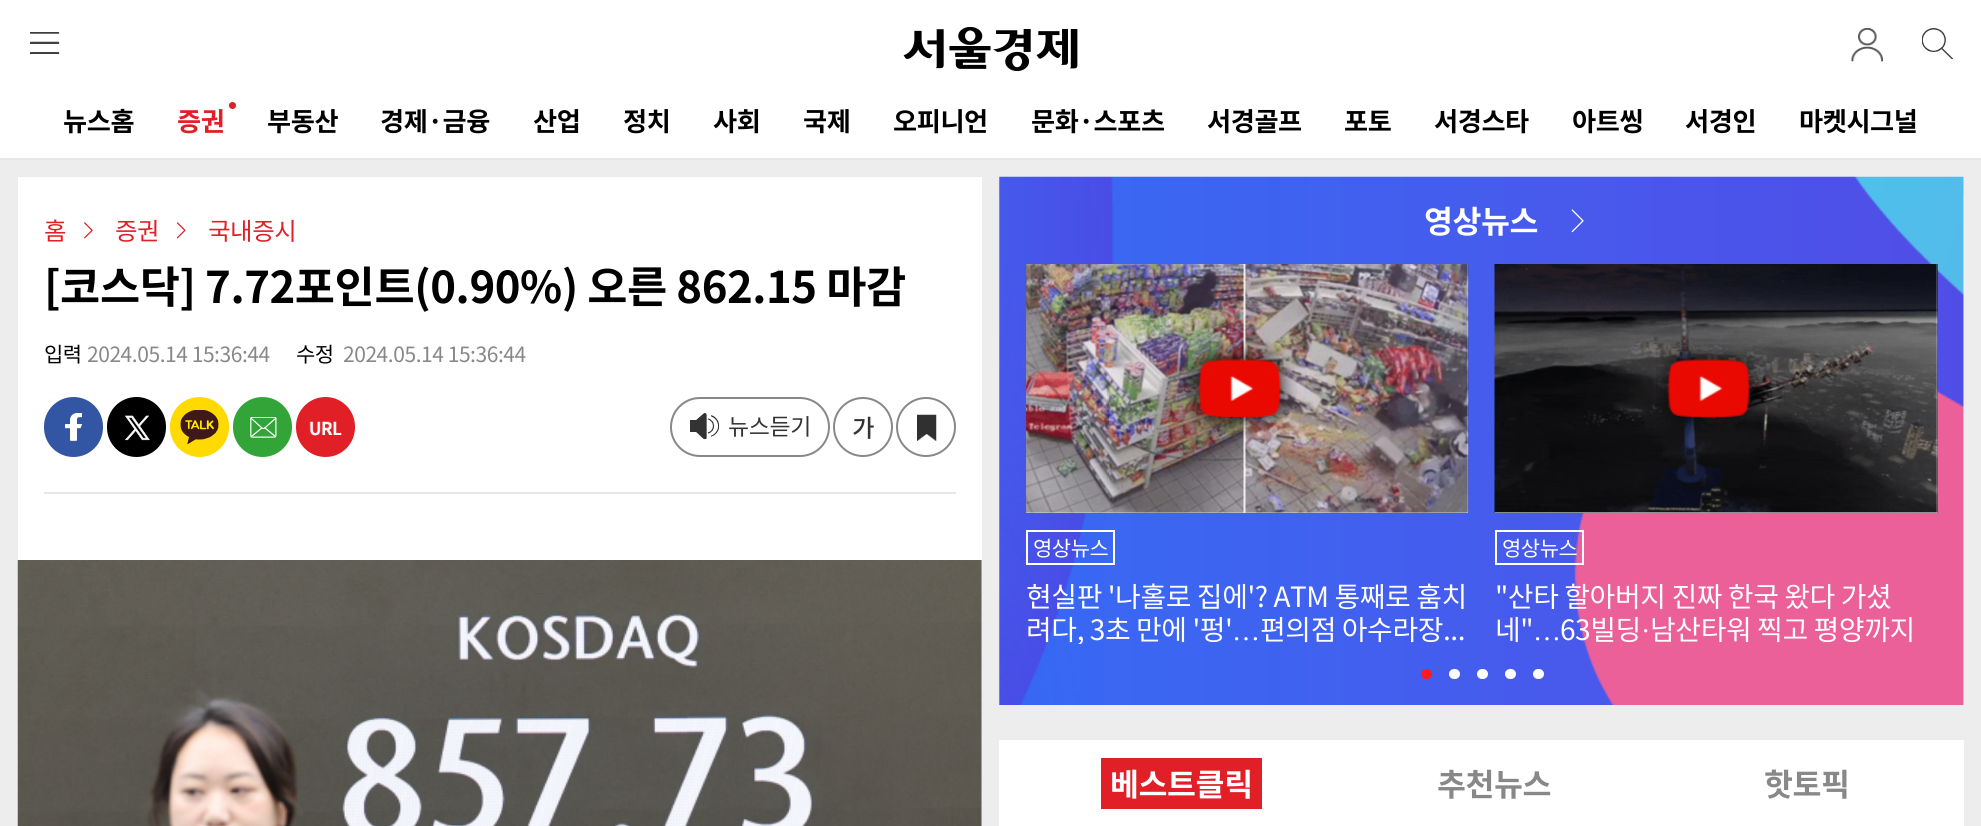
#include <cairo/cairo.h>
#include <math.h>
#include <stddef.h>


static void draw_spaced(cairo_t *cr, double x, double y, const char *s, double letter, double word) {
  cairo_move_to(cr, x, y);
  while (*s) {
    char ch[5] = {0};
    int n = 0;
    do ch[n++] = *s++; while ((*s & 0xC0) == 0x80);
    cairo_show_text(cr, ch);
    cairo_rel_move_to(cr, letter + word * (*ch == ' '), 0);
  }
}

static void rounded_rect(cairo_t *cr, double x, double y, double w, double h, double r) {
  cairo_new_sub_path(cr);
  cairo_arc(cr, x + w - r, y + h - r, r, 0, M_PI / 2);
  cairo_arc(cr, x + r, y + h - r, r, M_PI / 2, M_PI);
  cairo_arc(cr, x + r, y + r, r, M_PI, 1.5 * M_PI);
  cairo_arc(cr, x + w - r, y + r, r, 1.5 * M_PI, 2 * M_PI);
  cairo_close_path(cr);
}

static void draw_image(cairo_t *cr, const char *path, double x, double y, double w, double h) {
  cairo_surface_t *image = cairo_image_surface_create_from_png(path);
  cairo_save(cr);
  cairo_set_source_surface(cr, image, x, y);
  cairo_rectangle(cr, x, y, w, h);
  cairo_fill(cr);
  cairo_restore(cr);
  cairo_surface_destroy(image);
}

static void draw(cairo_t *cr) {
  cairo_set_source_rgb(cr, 1, 1, 1);
  cairo_paint(cr);
  cairo_set_source_rgb(cr, 231 / 255.0, 231 / 255.0, 231 / 255.0);
  cairo_rectangle(cr, 0, 158, 1981, 2);
  cairo_fill(cr);
  draw_image(cr, "images/1.png", 30, 32, 30, 22);
  draw_image(cr, "images/2.png", 903, 26, 175, 46);
  draw_image(cr, "images/3.png", 1851, 28, 32, 34);
  draw_image(cr, "images/4.png", 1922, 28, 31, 32);
  cairo_set_source_rgb(cr, 224 / 255.0, 31 / 255.0, 38 / 255.0);
  cairo_arc(cr, 232.5, 105.5, 3.5, 0, 2 * M_PI);
  cairo_fill(cr);
  cairo_set_source_rgb(cr, 237 / 255.0, 237 / 255.0, 237 / 255.0);
  cairo_rectangle(cr, 0, 160, 1981, 666);
  cairo_fill(cr);
  cairo_set_source_rgb(cr, 1, 1, 1);
  cairo_rectangle(cr, 18, 177, 964, 649);
  cairo_fill(cr);
  cairo_set_source_rgb(cr, 231 / 255.0, 231 / 255.0, 231 / 255.0);
  cairo_rectangle(cr, 44, 492, 912, 2);
  cairo_fill(cr);
  draw_image(cr, "images/5.png", 84, 222, 9, 17);
  draw_image(cr, "images/6.png", 177, 222, 9, 17);
  cairo_set_source_rgb(cr, 50 / 255.0, 85 / 255.0, 164 / 255.0);
  rounded_rect(cr, 44, 397, 59, 60, 29.5);
  cairo_fill(cr);
  draw_image(cr, "images/7.png", 65, 413, 17, 28);
  cairo_set_source_rgb(cr, 0, 0, 0);
  rounded_rect(cr, 107, 397, 59, 60, 29.5);
  cairo_fill(cr);
  draw_image(cr, "images/8.png", 125, 415, 25, 26);
  cairo_set_source_rgb(cr, 254 / 255.0, 218 / 255.0, 0);
  rounded_rect(cr, 170, 397, 59, 60, 29.5);
  cairo_fill(cr);
  draw_image(cr, "images/9.png", 180, 410, 39, 35);
  cairo_set_source_rgb(cr, 51 / 255.0, 165 / 255.0, 56 / 255.0);
  rounded_rect(cr, 233, 397, 59, 60, 29.5);
  cairo_fill(cr);
  draw_image(cr, "images/10.png", 250, 417, 27, 21);
  cairo_set_source_rgb(cr, 224 / 255.0, 31 / 255.0, 38 / 255.0);
  rounded_rect(cr, 296, 397, 59, 60, 29.5);
  cairo_fill(cr);
  draw_image(cr, "images/11.png", 309, 421, 33, 15);
  rounded_rect(cr, 671, 398, 158, 58, 29);
  cairo_set_source_rgb(cr, 136 / 255.0, 136 / 255.0, 136 / 255.0);
  cairo_stroke(cr);
  draw_image(cr, "images/12.png", 690, 413, 29, 26);
  cairo_arc(cr, 863, 427, 29, 0, 2 * M_PI);
  cairo_stroke(cr);
  draw_image(cr, "images/13.png", 917, 414, 20, 27);
  cairo_arc(cr, 926, 427, 29, 0, 2 * M_PI);
  cairo_stroke(cr);
  draw_image(cr, "images/14.png", 17, 560, 965, 266);
  cairo_set_source_rgb(cr, 1, 1, 1);
  cairo_rectangle(cr, 999, 196, 965, 630);
  cairo_fill(cr);
  draw_image(cr, "images/15.png", 999, 176, 965, 529);
  draw_image(cr, "images/16.png", 1571, 209, 13, 24);
  cairo_set_source_rgb(cr, 239 / 255.0, 239 / 255.0, 239 / 255.0);
  cairo_rectangle(cr, 1026, 264, 442, 249);
  cairo_fill(cr);
  draw_image(cr, "images/17.png", 1026, 264, 443, 249);
  draw_image(cr, "images/18.png", 1182, 342, 116, 93);
  cairo_rectangle(cr, 1027, 531, 87, 33);
  cairo_set_source_rgb(cr, 1, 1, 1);
  cairo_stroke(cr);
  cairo_set_source_rgb(cr, 239 / 255.0, 239 / 255.0, 239 / 255.0);
  cairo_rectangle(cr, 1495, 264, 442, 249);
  cairo_fill(cr);
  draw_image(cr, "images/19.png", 1494, 264, 444, 249);
  draw_image(cr, "images/20.png", 1656, 344, 110, 89);
  cairo_rectangle(cr, 1496, 531, 87, 33);
  cairo_set_source_rgb(cr, 1, 1, 1);
  cairo_stroke(cr);
  cairo_set_source_rgb(cr, 1, 25 / 255.0, 32 / 255.0);
  rounded_rect(cr, 1421, 669, 11, 10, 5);
  cairo_fill(cr);
  cairo_set_source_rgb(cr, 1, 1, 1);
  rounded_rect(cr, 1449, 669, 11, 10, 5);
  cairo_fill(cr);
  rounded_rect(cr, 1477, 669, 11, 10, 5);
  cairo_fill(cr);
  rounded_rect(cr, 1505, 669, 11, 10, 5);
  cairo_fill(cr);
  rounded_rect(cr, 1533, 669, 11, 10, 5);
  cairo_fill(cr);
  cairo_set_source_rgb(cr, 237 / 255.0, 237 / 255.0, 237 / 255.0);
  cairo_rectangle(cr, 999, 705, 965, 35);
  cairo_fill(cr);
  cairo_set_source_rgb(cr, 224 / 255.0, 31 / 255.0, 39 / 255.0);
  cairo_rectangle(cr, 1101, 758, 161, 51);
  cairo_fill(cr);
  cairo_select_font_face(cr, "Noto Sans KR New", CAIRO_FONT_SLANT_NORMAL, CAIRO_FONT_WEIGHT_BOLD);
  cairo_set_font_size(cr, 26.25);
  cairo_set_source_rgb(cr, 0, 0, 0);
  draw_spaced(cr, 63, 131, "뉴스홈", -0.45, 0);
  cairo_set_source_rgb(cr, 224 / 255.0, 31 / 255.0, 38 / 255.0);
  draw_spaced(cr, 177, 131, "증권", -0.45, 0);
  cairo_set_source_rgb(cr, 0, 0, 0);
  draw_spaced(cr, 267, 131, "부동산", -0.45, 0);
  draw_spaced(cr, 380, 131, "경제·금융", -0.45, 0);
  draw_spaced(cr, 533, 131, "산업", -0.45, 0);
  draw_spaced(cr, 623, 131, "정치", -0.45, 0);
  draw_spaced(cr, 713, 131, "사회", -0.45, 0);
  draw_spaced(cr, 803, 131, "국제", -0.45, 0);
  draw_spaced(cr, 893, 131, "오피니언", -0.45, 0);
  draw_spaced(cr, 1031, 131, "문화·스포츠", -0.45, 0);
  draw_spaced(cr, 1207, 131, "서경골프", -0.45, 0);
  draw_spaced(cr, 1344, 131, "포토", -0.45, 0);
  draw_spaced(cr, 1434, 131, "서경스타", -0.45, 0);
  draw_spaced(cr, 1572, 131, "아트씽", -0.45, 0);
  draw_spaced(cr, 1685, 131, "서경인", -0.45, 0);
  draw_spaced(cr, 1799, 131, "마켓시그널", -0.45, 0);
  cairo_select_font_face(cr, "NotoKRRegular", CAIRO_FONT_SLANT_NORMAL, CAIRO_FONT_WEIGHT_NORMAL);
  cairo_set_font_size(cr, 24.5);
  cairo_set_source_rgb(cr, 224 / 255.0, 31 / 255.0, 38 / 255.0);
  draw_spaced(cr, 44, 240, "홈", -0.45, 0);
  draw_spaced(cr, 115, 240, "증권", -0.45, 0);
  draw_spaced(cr, 208, 240, "국내증시", -0.45, 0);
  cairo_select_font_face(cr, "Noto Sans KR New", CAIRO_FONT_SLANT_NORMAL, CAIRO_FONT_WEIGHT_BOLD);
  cairo_set_font_size(cr, 43.75);
  cairo_set_source_rgb(cr, 0, 0, 0);
  draw_spaced(cr, 44, 303, "[코스닥] 7.72포인트(0.90%) 오른 862.15 마감", -0.45, 0);
  cairo_select_font_face(cr, "NotoKRRegular", CAIRO_FONT_SLANT_NORMAL, CAIRO_FONT_WEIGHT_NORMAL);
  cairo_set_font_size(cr, 21);
  draw_spaced(cr, 44, 362, "입력", -0.45, 0);
  cairo_set_source_rgb(cr, 136 / 255.0, 136 / 255.0, 136 / 255.0);
  draw_spaced(cr, 87, 362, "2024.05.14 15:36:44", -0.45, 0);
  cairo_set_source_rgb(cr, 0, 0, 0);
  draw_spaced(cr, 296, 362, "수정", -0.45, 0);
  cairo_set_source_rgb(cr, 136 / 255.0, 136 / 255.0, 136 / 255.0);
  draw_spaced(cr, 343, 362, "2024.05.14 15:36:44", -0.45, 0);
  cairo_set_font_size(cr, 23);
  cairo_set_source_rgb(cr, 51 / 255.0, 51 / 255.0, 51 / 255.0);
  draw_spaced(cr, 728, 435, "뉴스듣기", -0.45, 0);
  cairo_select_font_face(cr, "Noto Sans KR New Medium", CAIRO_FONT_SLANT_NORMAL, CAIRO_FONT_WEIGHT_NORMAL);
  cairo_set_font_size(cr, 24.5);
  draw_spaced(cr, 852, 437, "가", -0.45, 0);
  cairo_select_font_face(cr, "Noto Sans KR New", CAIRO_FONT_SLANT_NORMAL, CAIRO_FONT_WEIGHT_BOLD);
  cairo_set_font_size(cr, 31.5);
  cairo_set_source_rgb(cr, 1, 1, 1);
  draw_spaced(cr, 1424, 233, "영상뉴스", -0.45, 0);
  cairo_select_font_face(cr, "NotoKRRegular", CAIRO_FONT_SLANT_NORMAL, CAIRO_FONT_WEIGHT_NORMAL);
  cairo_set_font_size(cr, 21);
  draw_spaced(cr, 1033, 556, "영상뉴스", -0.45, 0);
  cairo_set_font_size(cr, 28);
  draw_spaced(cr, 1026, 607, "현실판 '나홀로 집에'? ATM 통째로 훔치", -0.45, 0);
  cairo_save(cr);
  cairo_rectangle(cr, 1026, 583, 442, 61);
  cairo_clip(cr);
  draw_spaced(cr, 1026, 640, "려다, 3초 만에 '펑'", -0.45, 0);
  cairo_restore(cr);
  cairo_select_font_face(cr, "Liberation Serif", CAIRO_FONT_SLANT_NORMAL, CAIRO_FONT_WEIGHT_NORMAL);
  draw_spaced(cr, 1232, 640, "…", -0.45, 0);
  cairo_select_font_face(cr, "NotoKRRegular", CAIRO_FONT_SLANT_NORMAL, CAIRO_FONT_WEIGHT_NORMAL);
  draw_spaced(cr, 1260, 640, "편의점 아수라장...", -0.45, 0);
  cairo_set_font_size(cr, 21);
  draw_spaced(cr, 1502, 556, "영상뉴스", -0.45, 0);
  cairo_set_font_size(cr, 28);
  draw_spaced(cr, 1495, 607, "\"산타 할아버지 진짜 한국 왔다 가셨", -0.45, 0);
  draw_spaced(cr, 1495, 640, "네\"", -0.45, 0);
  draw_spaced(cr, 1560, 640, "63빌딩", -0.45, 0);
  cairo_select_font_face(cr, "Liberation Serif", CAIRO_FONT_SLANT_NORMAL, CAIRO_FONT_WEIGHT_NORMAL);
  draw_spaced(cr, 1641, 640, "·", -0.45, 0);
  cairo_select_font_face(cr, "NotoKRRegular", CAIRO_FONT_SLANT_NORMAL, CAIRO_FONT_WEIGHT_NORMAL);
  draw_spaced(cr, 1650, 640, "남산타워 찍고 평양까지", -0.45, 0);
  cairo_select_font_face(cr, "Liberation Serif", CAIRO_FONT_SLANT_NORMAL, CAIRO_FONT_WEIGHT_NORMAL);
  draw_spaced(cr, 1533, 640, "…", -0.45, 0);
  cairo_select_font_face(cr, "Noto Sans KR New", CAIRO_FONT_SLANT_NORMAL, CAIRO_FONT_WEIGHT_BOLD);
  cairo_set_font_size(cr, 31.5);
  draw_spaced(cr, 1110, 796, "베스트클릭", -0.45, 0);
  cairo_set_source_rgb(cr, 136 / 255.0, 136 / 255.0, 136 / 255.0);
  draw_spaced(cr, 1437, 796, "추천뉴스", -0.45, 0);
  draw_spaced(cr, 1764, 796, "핫토픽", -0.45, 0);
}

int main(void) {
  cairo_surface_t *surface = cairo_image_surface_create(CAIRO_FORMAT_RGB24, 1981, 826);
  cairo_t *cr = cairo_create(surface);
  cairo_font_options_t *options = cairo_font_options_create();
  cairo_font_options_set_hint_metrics(options, CAIRO_HINT_METRICS_OFF);
  cairo_font_options_set_hint_style(options, CAIRO_HINT_STYLE_NONE);
  cairo_set_font_options(cr, options);
  cairo_set_miter_limit(cr, 4);
  draw(cr);
  cairo_surface_write_to_png(surface, "out.png");
  cairo_font_options_destroy(options);
  cairo_destroy(cr);
  cairo_surface_destroy(surface);
  return 0;
}
